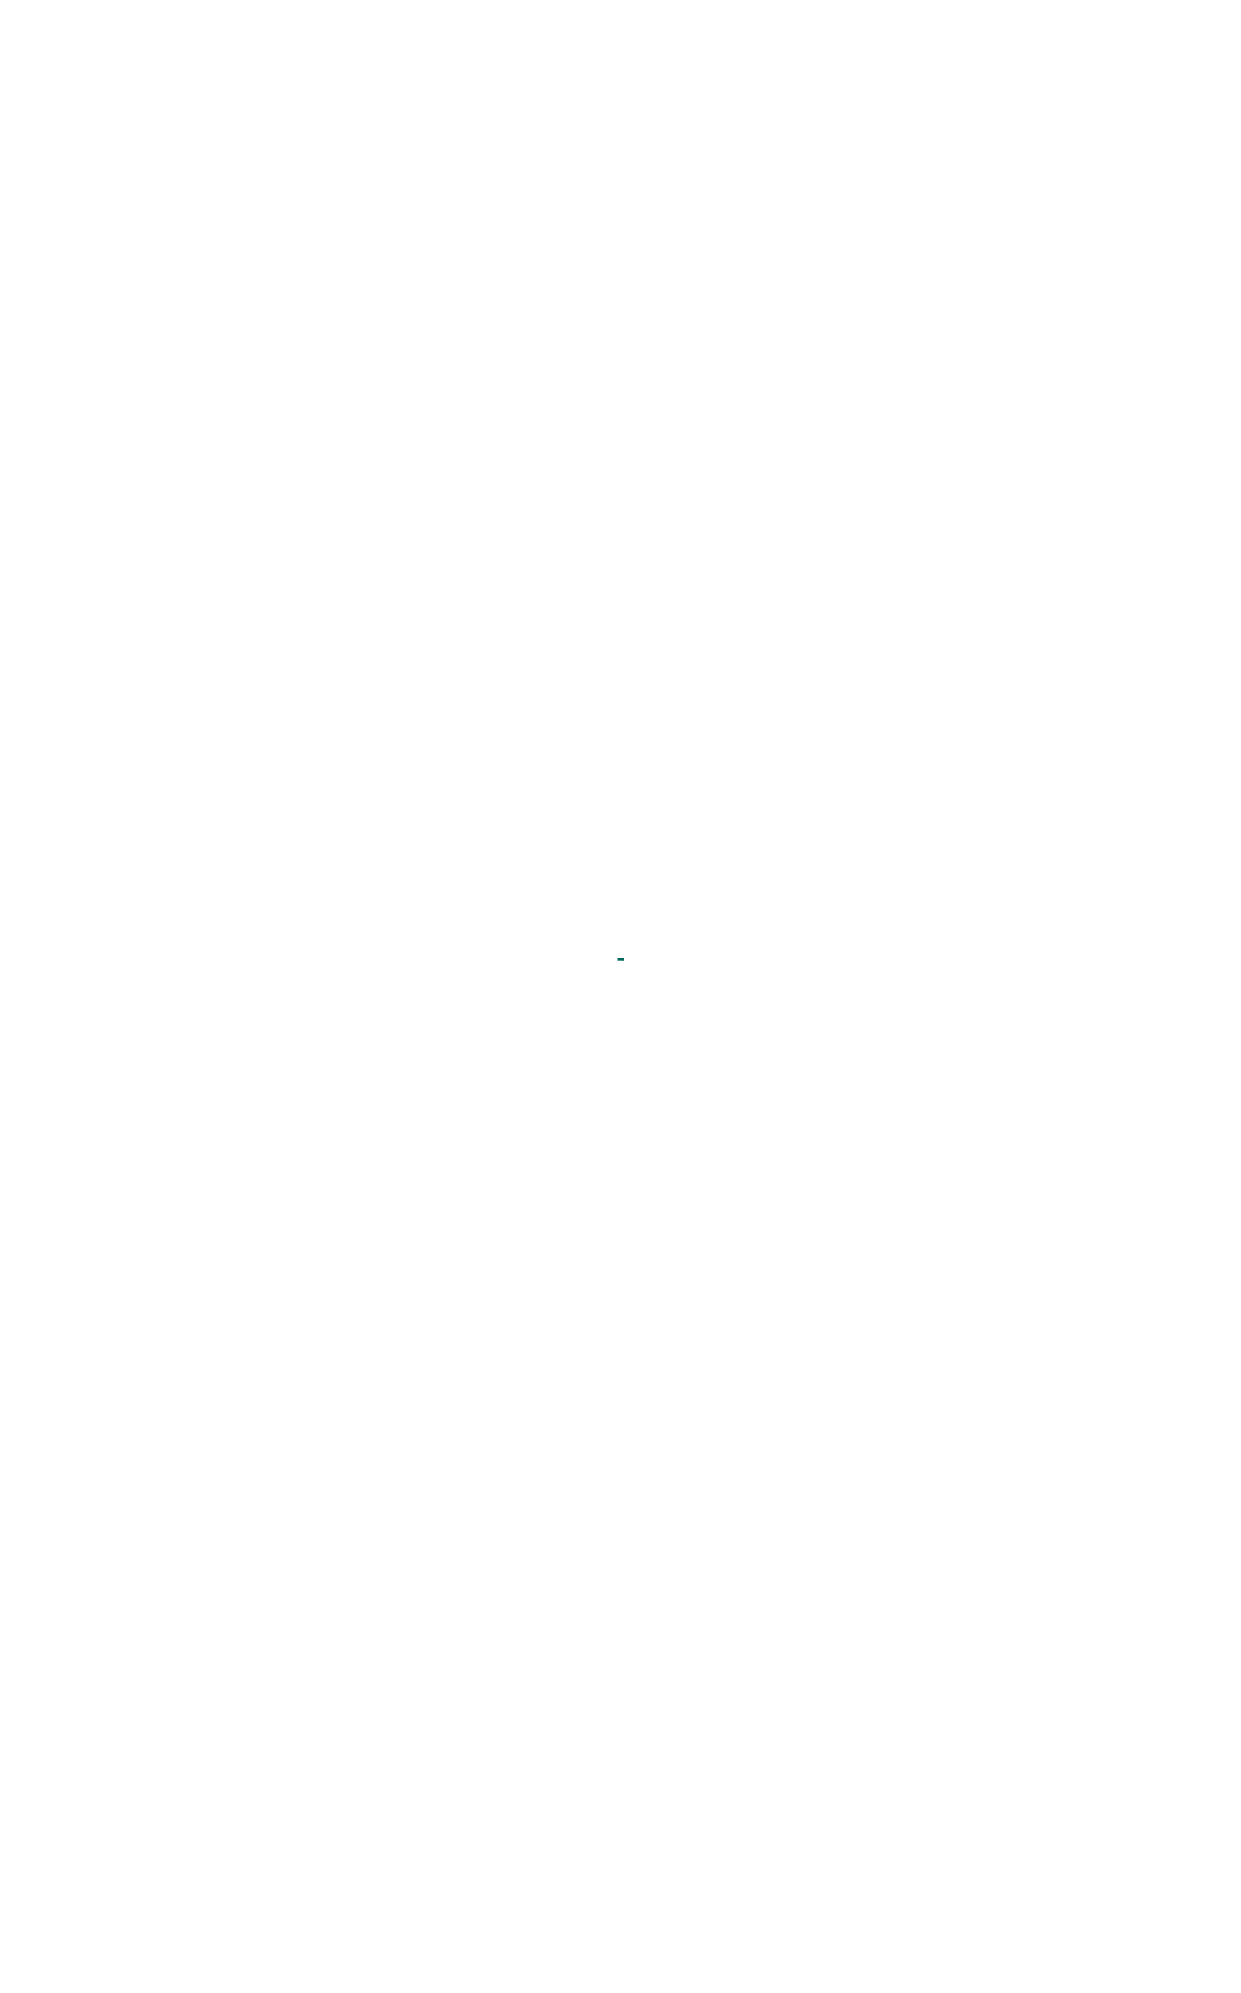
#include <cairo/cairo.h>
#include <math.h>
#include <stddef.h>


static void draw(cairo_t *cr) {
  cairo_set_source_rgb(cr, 1, 1, 1);
  cairo_paint(cr);
  cairo_save(cr);
  cairo_rectangle(cr, 581, 958, 40, 80);
  cairo_clip(cr);
  cairo_new_path(cr);
  cairo_move_to(cr, 617.5, 959);
  cairo_curve_to(cr, 625, 958, 632.5, 960, 639, 963.5);
  cairo_curve_to(cr, 671.5, 981.5, 661, 1031.5, 624, 1035);
  cairo_set_source_rgb(cr, 0, 105 / 255.0, 92 / 255.0);
  cairo_set_line_width(cr, 3.7);
  cairo_stroke(cr);
  cairo_restore(cr);
  cairo_save(cr);
  cairo_rectangle(cr, 621, 958, 40, 80);
  cairo_clip(cr);
  cairo_new_path(cr);
  cairo_move_to(cr, 617.5, 1035);
  cairo_curve_to(cr, 610, 1034, 602.5, 1031.5, 597, 1026.5);
  cairo_curve_to(cr, 567.5, 1003.5, 586.5, 955.5, 624, 959);
  cairo_set_source_rgb(cr, 0, 105 / 255.0, 92 / 255.0);
  cairo_set_line_width(cr, 3.7);
  cairo_stroke(cr);
  cairo_restore(cr);
}

int main(void) {
  cairo_surface_t *surface = cairo_image_surface_create(CAIRO_FORMAT_RGB24, 1241, 1993);
  cairo_t *cr = cairo_create(surface);
  cairo_font_options_t *options = cairo_font_options_create();
  cairo_font_options_set_hint_metrics(options, CAIRO_HINT_METRICS_OFF);
  cairo_font_options_set_hint_style(options, CAIRO_HINT_STYLE_NONE);
  cairo_set_font_options(cr, options);
  cairo_set_miter_limit(cr, 4);
  draw(cr);
  cairo_surface_write_to_png(surface, "out.png");
  cairo_font_options_destroy(options);
  cairo_destroy(cr);
  cairo_surface_destroy(surface);
  return 0;
}
